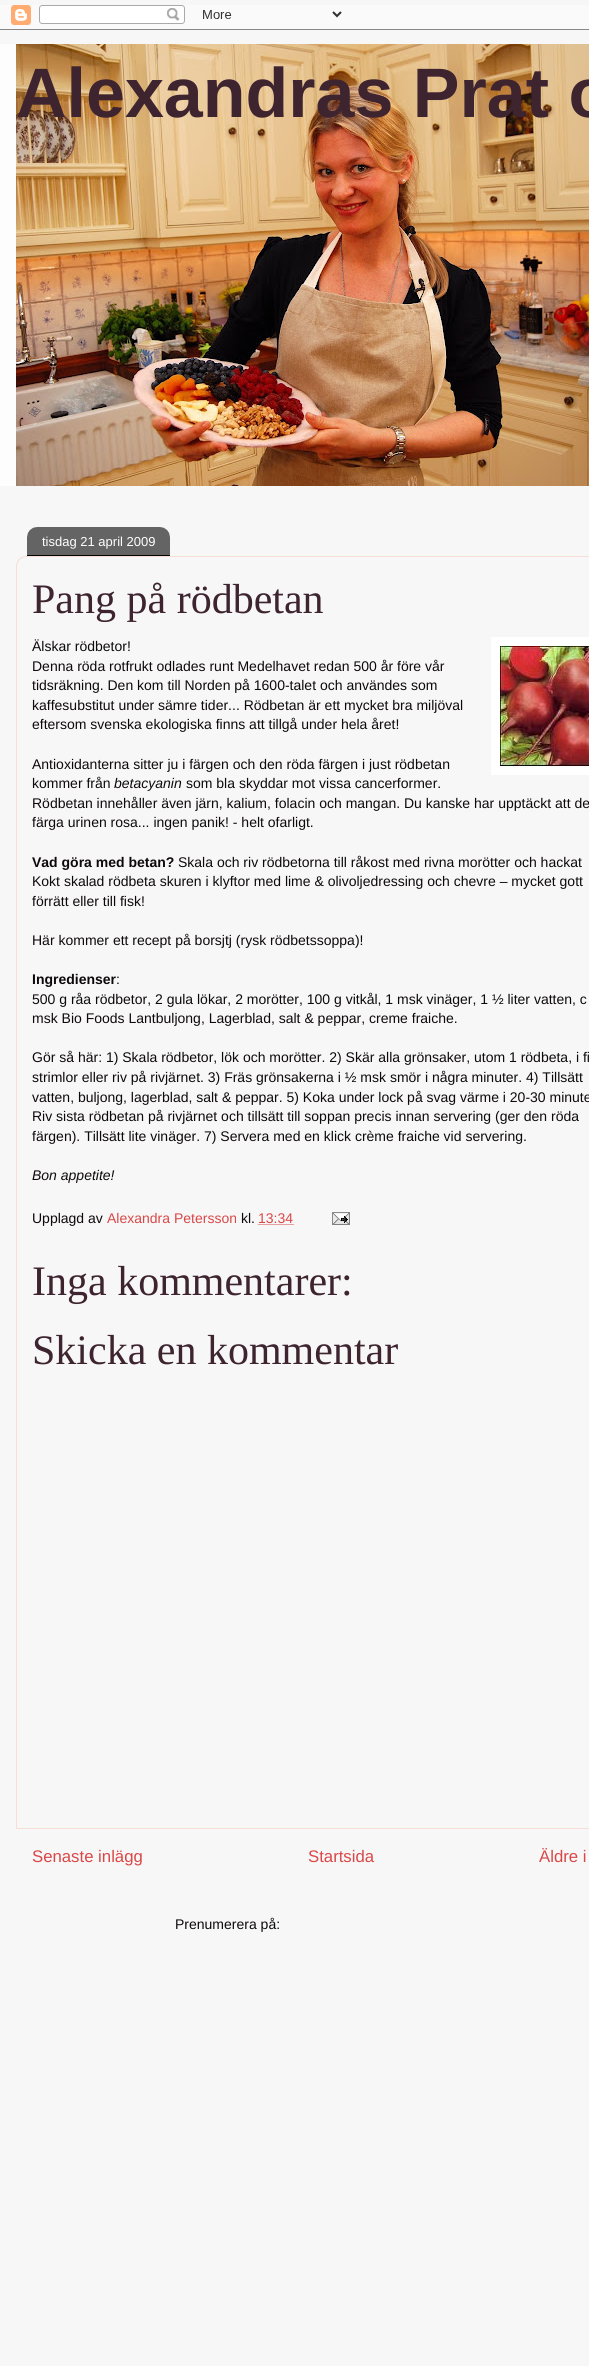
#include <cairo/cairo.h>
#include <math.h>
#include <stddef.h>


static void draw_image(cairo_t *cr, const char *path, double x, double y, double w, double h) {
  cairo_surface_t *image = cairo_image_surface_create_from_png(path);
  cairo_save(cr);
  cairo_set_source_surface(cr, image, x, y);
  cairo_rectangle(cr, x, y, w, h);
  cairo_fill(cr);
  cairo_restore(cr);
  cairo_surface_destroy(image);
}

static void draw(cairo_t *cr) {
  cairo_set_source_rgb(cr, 247 / 255.0, 247 / 255.0, 247 / 255.0);
  cairo_paint(cr);
  draw_image(cr, "images/1.png", 0, 5, 589, 25);
  cairo_set_source_rgb(cr, 253 / 255.0, 253 / 255.0, 253 / 255.0);
  cairo_rectangle(cr, 0, 44, 16, 442);
  cairo_fill(cr);
  draw_image(cr, "images/2.png", 16, 44, 573, 442);
  cairo_new_path(cr);
  cairo_move_to(cr, 26, 556.5);
  cairo_line_to(cr, 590, 556.5);
  cairo_curve_to(cr, 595, 556.5, 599.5, 561, 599.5, 566);
  cairo_line_to(cr, 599.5, 1828.5);
  cairo_line_to(cr, 16.5, 1828.5);
  cairo_line_to(cr, 16.5, 566);
  cairo_curve_to(cr, 16.5, 561, 21, 556.5, 26, 556.5);
  cairo_close_path(cr);
  cairo_set_source_rgb(cr, 246 / 255.0, 221 / 255.0, 214 / 255.0);
  cairo_set_line_width(cr, 1);
  cairo_stroke(cr);
  draw_image(cr, "images/3.png", 27, 527, 143, 28);
  cairo_set_source_rgb(cr, 0, 0, 0);
  cairo_rectangle(cr, 27, 555, 143, 1);
  cairo_fill(cr);
  cairo_set_source_rgb(cr, 1, 1, 1);
  cairo_rectangle(cr, 491, 637, 98, 138);
  cairo_fill(cr);
  draw_image(cr, "images/4.png", 500, 646, 89, 120);
  cairo_new_path(cr);
  cairo_move_to(cr, 258.5, 1224.5);
  cairo_line_to(cr, 293.5, 1224.5);
  cairo_set_source_rgb(cr, 218 / 255.0, 71 / 255.0, 71 / 255.0);
  cairo_set_dash(cr, (double[]){1, 1}, 2, 0);
  cairo_stroke(cr);
  draw_image(cr, "images/5.png", 332, 1212, 18, 13);
  cairo_select_font_face(cr, "Arimo", CAIRO_FONT_SLANT_NORMAL, CAIRO_FONT_WEIGHT_BOLD);
  cairo_set_font_size(cr, 70);
  cairo_set_source_rgb(cr, 61 / 255.0, 36 / 255.0, 47 / 255.0);
  cairo_move_to(cr, 16, 117);
  cairo_show_text(cr, "Alexandras Prat o");
  cairo_select_font_face(cr, "Liberation Sans", CAIRO_FONT_SLANT_NORMAL, CAIRO_FONT_WEIGHT_NORMAL);
  cairo_set_font_size(cr, 13);
  cairo_set_source_rgb(cr, 1, 1, 1);
  cairo_move_to(cr, 42, 546);
  cairo_show_text(cr, "tisdag 21 april 2009");
  cairo_select_font_face(cr, "Liberation Serif", CAIRO_FONT_SLANT_NORMAL, CAIRO_FONT_WEIGHT_NORMAL);
  cairo_set_font_size(cr, 42);
  cairo_set_source_rgb(cr, 61 / 255.0, 36 / 255.0, 47 / 255.0);
  cairo_move_to(cr, 32, 613);
  cairo_show_text(cr, "Pang på rödbetan");
  cairo_select_font_face(cr, "Liberation Sans", CAIRO_FONT_SLANT_NORMAL, CAIRO_FONT_WEIGHT_NORMAL);
  cairo_set_font_size(cr, 14);
  cairo_set_source_rgb(cr, 14 / 255.0, 10 / 255.0, 12 / 255.0);
  cairo_move_to(cr, 32, 651);
  cairo_show_text(cr, "Älskar rödbetor!");
  cairo_move_to(cr, 32, 671);
  cairo_show_text(cr, "Denna röda rotfrukt odlades runt Medelhavet redan 500 år före vår");
  cairo_move_to(cr, 32, 690);
  cairo_show_text(cr, "tidsräkning. Den kom till Norden på 1600-talet och användes som");
  cairo_move_to(cr, 32, 710);
  cairo_show_text(cr, "kaffesubstitut under sämre tider... Rödbetan är ett mycket bra miljöval");
  cairo_move_to(cr, 32, 729);
  cairo_show_text(cr, "eftersom svenska ekologiska finns att tillgå under hela året!");
  cairo_move_to(cr, 32, 769);
  cairo_show_text(cr, "Antioxidanterna sitter ju i färgen och den röda färgen i just rödbetan");
  cairo_move_to(cr, 32, 788);
  cairo_show_text(cr, "kommer från");
  cairo_select_font_face(cr, "Liberation Sans", CAIRO_FONT_SLANT_ITALIC, CAIRO_FONT_WEIGHT_NORMAL);
  cairo_move_to(cr, 114, 788);
  cairo_show_text(cr, "betacyanin");
  cairo_select_font_face(cr, "Liberation Sans", CAIRO_FONT_SLANT_NORMAL, CAIRO_FONT_WEIGHT_NORMAL);
  cairo_move_to(cr, 186, 788);
  cairo_show_text(cr, "som bla skyddar mot vissa cancerformer.");
  cairo_move_to(cr, 32, 808);
  cairo_show_text(cr, "Rödbetan innehåller även järn, kalium, folacin och mangan. Du kanske har upptäckt att de");
  cairo_move_to(cr, 32, 827);
  cairo_show_text(cr, "färga urinen rosa... ingen panik! - helt ofarligt.");
  cairo_select_font_face(cr, "Liberation Sans", CAIRO_FONT_SLANT_NORMAL, CAIRO_FONT_WEIGHT_BOLD);
  cairo_move_to(cr, 32, 867);
  cairo_show_text(cr, "Vad göra med betan?");
  cairo_select_font_face(cr, "Liberation Sans", CAIRO_FONT_SLANT_NORMAL, CAIRO_FONT_WEIGHT_NORMAL);
  cairo_move_to(cr, 178, 867);
  cairo_show_text(cr, "Skala och riv rödbetorna till råkost med rivna morötter och hackat");
  cairo_move_to(cr, 32, 886);
  cairo_show_text(cr, "Kokt skalad rödbeta skuren i klyftor med lime & olivoljedressing och chevre – mycket gott");
  cairo_move_to(cr, 32, 906);
  cairo_show_text(cr, "förrätt eller till fisk!");
  cairo_move_to(cr, 32, 945);
  cairo_show_text(cr, "Här kommer ett recept på borsjtj (rysk rödbetssoppa)!");
  cairo_select_font_face(cr, "Liberation Sans", CAIRO_FONT_SLANT_NORMAL, CAIRO_FONT_WEIGHT_BOLD);
  cairo_move_to(cr, 32, 984);
  cairo_show_text(cr, "Ingredienser");
  cairo_select_font_face(cr, "Liberation Sans", CAIRO_FONT_SLANT_NORMAL, CAIRO_FONT_WEIGHT_NORMAL);
  cairo_move_to(cr, 116, 984);
  cairo_show_text(cr, ":");
  cairo_move_to(cr, 32, 1004);
  cairo_show_text(cr, "500 g råa rödbetor, 2 gula lökar, 2 morötter, 100 g vitkål, 1 msk vinäger, 1 ½ liter vatten, c");
  cairo_move_to(cr, 32, 1023);
  cairo_show_text(cr, "msk Bio Foods Lantbuljong, Lagerblad, salt & peppar, creme fraiche.");
  cairo_move_to(cr, 32, 1062);
  cairo_show_text(cr, "Gör så här: 1) Skala rödbetor, lök och morötter. 2) Skär alla grönsaker, utom 1 rödbeta, i fi");
  cairo_move_to(cr, 32, 1082);
  cairo_show_text(cr, "strimlor eller riv på rivjärnet. 3) Fräs grönsakerna i ½ msk smör i några minuter. 4) Tillsätt");
  cairo_move_to(cr, 32, 1102);
  cairo_show_text(cr, "vatten, buljong, lagerblad, salt & peppar. 5) Koka under lock på svag värme i 20-30 minute");
  cairo_move_to(cr, 32, 1121);
  cairo_show_text(cr, "Riv sista rödbetan på rivjärnet och tillsätt till soppan precis innan servering (ger den röda");
  cairo_move_to(cr, 32, 1141);
  cairo_show_text(cr, "färgen). Tillsätt lite vinäger. 7) Servera med en klick crème fraiche vid servering.");
  cairo_select_font_face(cr, "Liberation Sans", CAIRO_FONT_SLANT_ITALIC, CAIRO_FONT_WEIGHT_NORMAL);
  cairo_move_to(cr, 32, 1180);
  cairo_show_text(cr, "Bon appetite!");
  cairo_select_font_face(cr, "Liberation Sans", CAIRO_FONT_SLANT_NORMAL, CAIRO_FONT_WEIGHT_NORMAL);
  cairo_move_to(cr, 32, 1223);
  cairo_show_text(cr, "Upplagd av");
  cairo_set_source_rgb(cr, 218 / 255.0, 71 / 255.0, 71 / 255.0);
  cairo_move_to(cr, 107, 1223);
  cairo_show_text(cr, "Alexandra Petersson");
  cairo_set_source_rgb(cr, 14 / 255.0, 10 / 255.0, 12 / 255.0);
  cairo_move_to(cr, 241, 1223);
  cairo_show_text(cr, "kl.");
  cairo_set_source_rgb(cr, 218 / 255.0, 71 / 255.0, 71 / 255.0);
  cairo_move_to(cr, 258, 1223);
  cairo_show_text(cr, "13:34");
  cairo_select_font_face(cr, "Liberation Serif", CAIRO_FONT_SLANT_NORMAL, CAIRO_FONT_WEIGHT_NORMAL);
  cairo_set_font_size(cr, 42);
  cairo_set_source_rgb(cr, 61 / 255.0, 36 / 255.0, 47 / 255.0);
  cairo_move_to(cr, 32, 1295);
  cairo_show_text(cr, "Inga kommentarer:");
  cairo_move_to(cr, 32, 1364);
  cairo_show_text(cr, "Skicka en kommentar");
  cairo_select_font_face(cr, "Liberation Sans", CAIRO_FONT_SLANT_NORMAL, CAIRO_FONT_WEIGHT_NORMAL);
  cairo_set_font_size(cr, 16.75);
  cairo_set_source_rgb(cr, 218 / 255.0, 71 / 255.0, 71 / 255.0);
  cairo_move_to(cr, 32, 1862);
  cairo_show_text(cr, "Senaste inlägg");
  cairo_move_to(cr, 308, 1862);
  cairo_show_text(cr, "Startsida");
  cairo_move_to(cr, 539, 1862);
  cairo_show_text(cr, "Äldre i");
  cairo_set_font_size(cr, 14);
  cairo_set_source_rgb(cr, 14 / 255.0, 10 / 255.0, 12 / 255.0);
  cairo_move_to(cr, 175, 1929);
  cairo_show_text(cr, "Prenumerera på:");
}

int main(void) {
  cairo_surface_t *surface = cairo_image_surface_create(CAIRO_FORMAT_RGB24, 589, 2366);
  cairo_t *cr = cairo_create(surface);
  cairo_font_options_t *options = cairo_font_options_create();
  cairo_font_options_set_hint_metrics(options, CAIRO_HINT_METRICS_OFF);
  cairo_font_options_set_hint_style(options, CAIRO_HINT_STYLE_NONE);
  cairo_set_font_options(cr, options);
  cairo_set_miter_limit(cr, 4);
  draw(cr);
  cairo_surface_write_to_png(surface, "out.png");
  cairo_font_options_destroy(options);
  cairo_destroy(cr);
  cairo_surface_destroy(surface);
  return 0;
}
